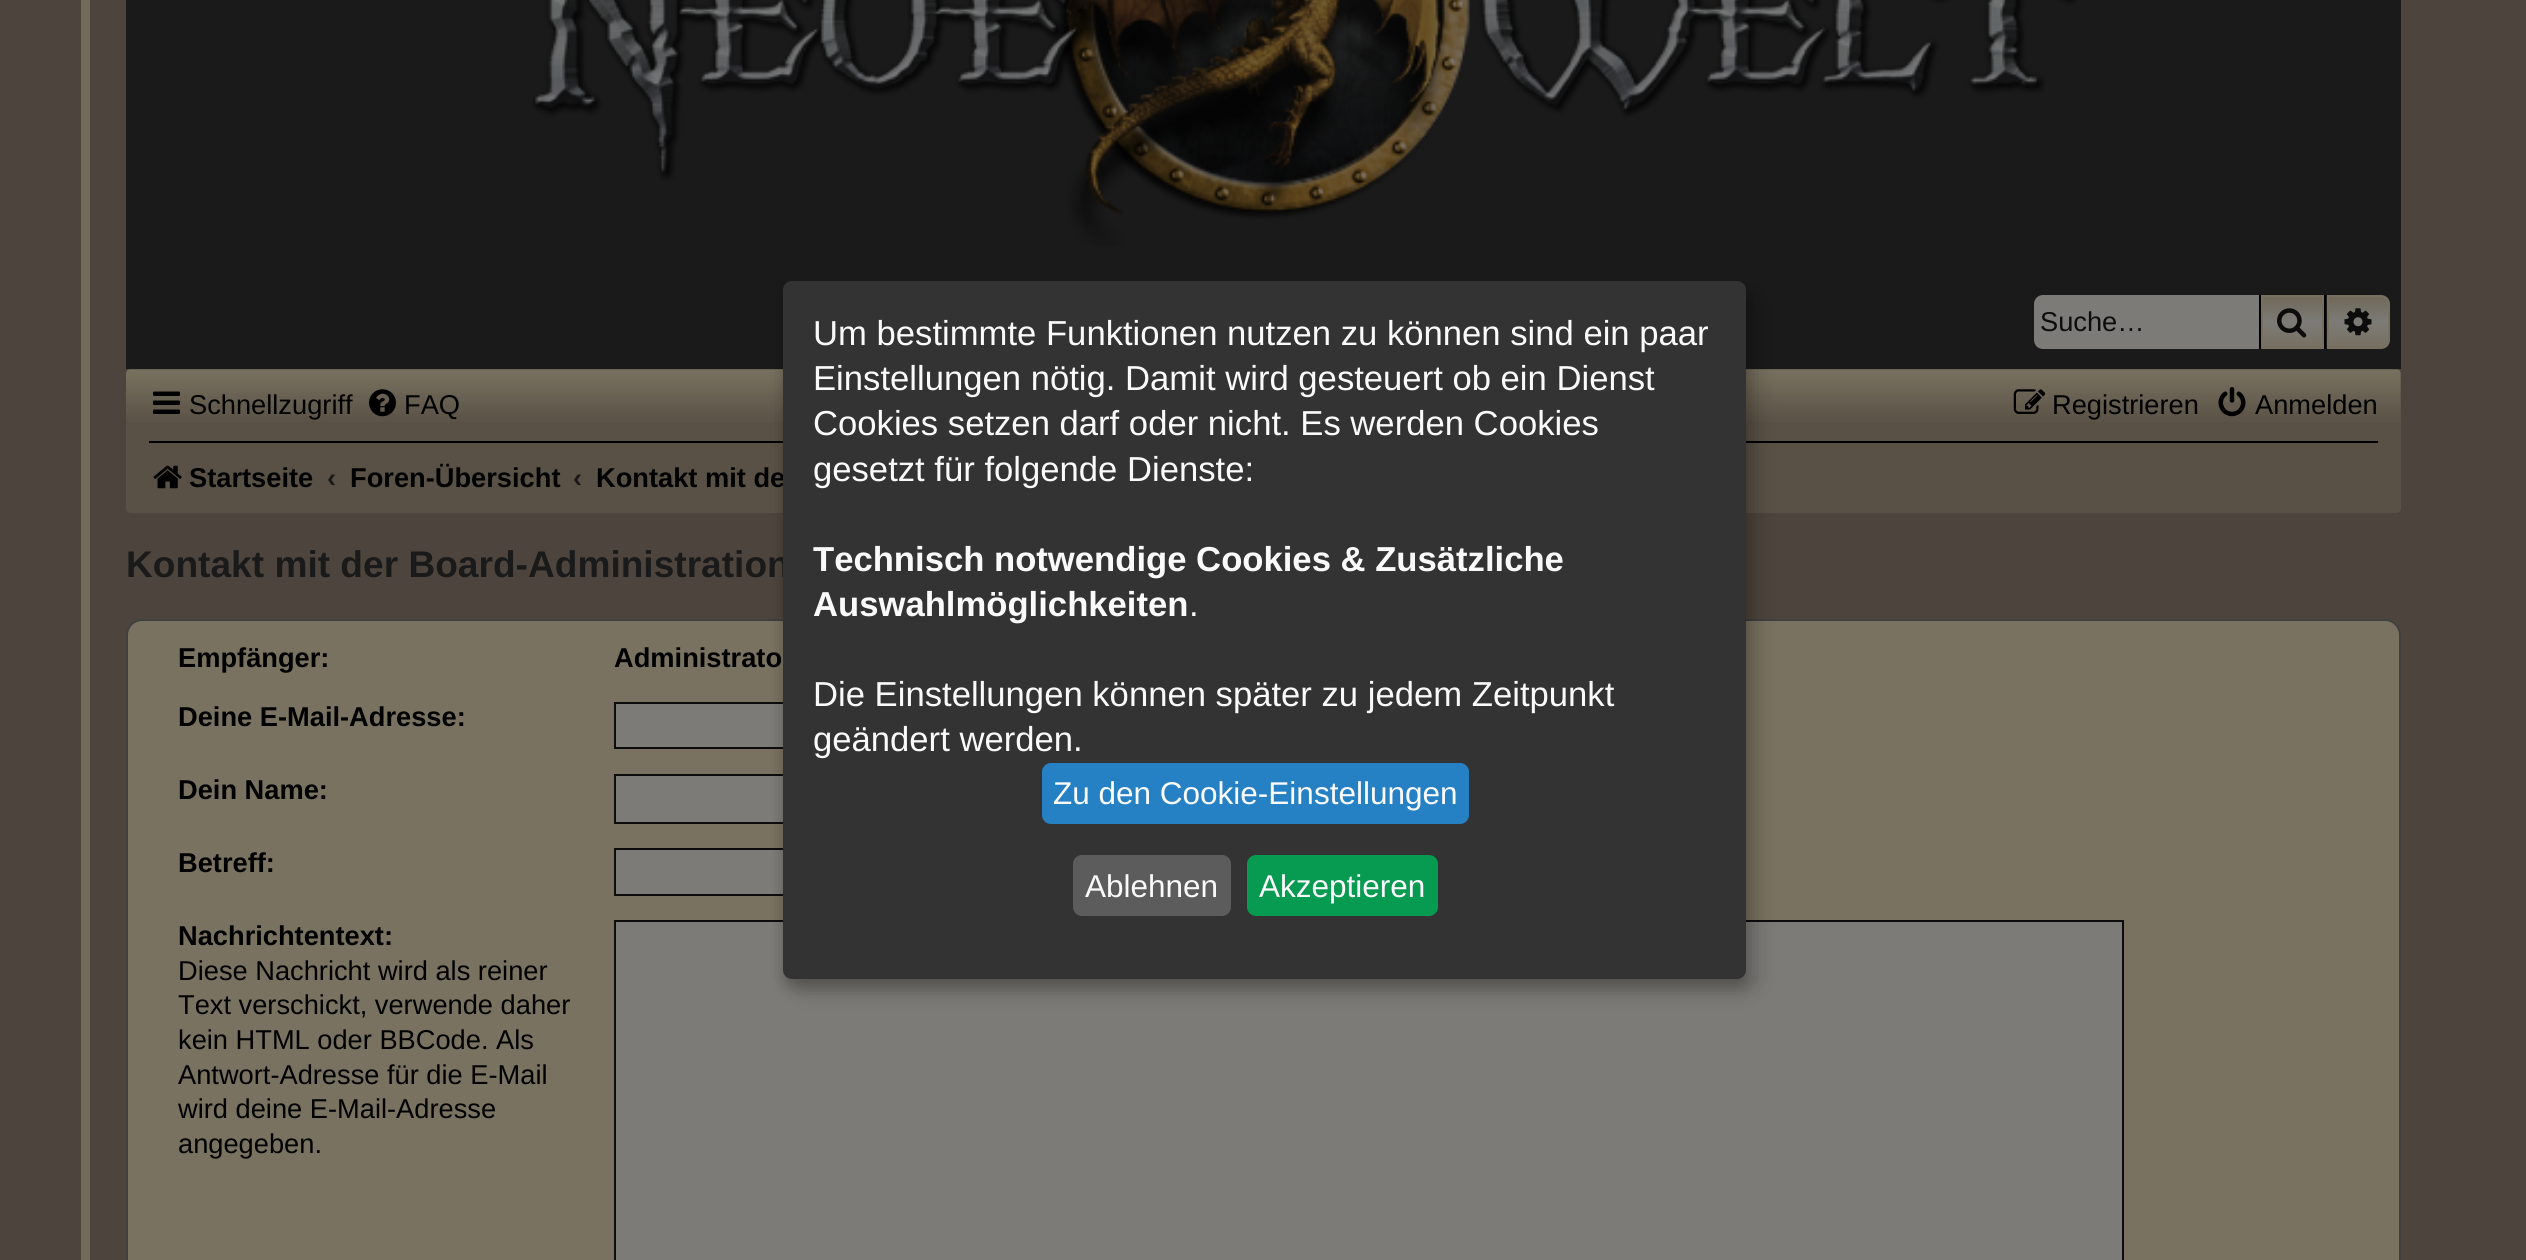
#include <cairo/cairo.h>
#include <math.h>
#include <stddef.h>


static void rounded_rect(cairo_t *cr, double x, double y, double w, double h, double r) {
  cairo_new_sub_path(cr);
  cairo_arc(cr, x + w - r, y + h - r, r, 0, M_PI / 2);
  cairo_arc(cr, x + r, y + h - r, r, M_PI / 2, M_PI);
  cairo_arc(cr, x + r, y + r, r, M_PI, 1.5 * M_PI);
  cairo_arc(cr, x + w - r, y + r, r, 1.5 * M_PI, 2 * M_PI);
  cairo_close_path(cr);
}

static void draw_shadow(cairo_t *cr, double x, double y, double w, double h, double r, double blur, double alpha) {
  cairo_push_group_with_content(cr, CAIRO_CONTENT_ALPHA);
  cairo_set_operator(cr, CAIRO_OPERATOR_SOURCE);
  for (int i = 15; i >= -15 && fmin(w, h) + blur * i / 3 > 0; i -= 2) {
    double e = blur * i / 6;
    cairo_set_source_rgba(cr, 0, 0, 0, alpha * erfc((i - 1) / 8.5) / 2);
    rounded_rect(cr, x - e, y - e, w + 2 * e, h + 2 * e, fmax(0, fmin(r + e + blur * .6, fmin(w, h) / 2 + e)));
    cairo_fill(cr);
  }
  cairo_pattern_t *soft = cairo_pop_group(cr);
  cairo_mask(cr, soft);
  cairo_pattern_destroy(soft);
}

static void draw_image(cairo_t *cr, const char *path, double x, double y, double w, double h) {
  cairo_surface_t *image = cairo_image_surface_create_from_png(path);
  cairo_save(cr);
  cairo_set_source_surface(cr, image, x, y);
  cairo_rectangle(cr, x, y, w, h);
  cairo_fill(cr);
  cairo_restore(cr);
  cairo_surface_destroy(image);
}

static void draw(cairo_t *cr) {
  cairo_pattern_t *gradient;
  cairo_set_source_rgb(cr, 77 / 255.0, 69 / 255.0, 61 / 255.0);
  cairo_paint(cr);
  cairo_new_path(cr);
  cairo_move_to(cr, 89, 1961);
  cairo_curve_to(cr, 86.5, 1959, 85.5, 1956, 85.5, 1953);
  cairo_line_to(cr, 85.5, -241);
  cairo_curve_to(cr, 85.5, -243.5, 86.5, -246.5, 89, -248.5);
  cairo_curve_to(cr, 91, -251, 94, -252, 97, -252);
  cairo_line_to(cr, 2430, -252);
  cairo_curve_to(cr, 2433, -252, 2436, -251, 2438, -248.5);
  cairo_set_source_rgb(cr, 114 / 255.0, 107 / 255.0, 90 / 255.0);
  cairo_set_line_width(cr, 9);
  cairo_stroke(cr);
  cairo_set_source_rgb(cr, 26 / 255.0, 26 / 255.0, 26 / 255.0);
  cairo_rectangle(cr, 126, 0, 2275, 369);
  cairo_fill(cr);
  draw_image(cr, "images/1.png", 532, 0, 1546, 246);
  cairo_set_source_rgb(cr, 125 / 255.0, 123 / 255.0, 119 / 255.0);
  cairo_new_path(cr);
  cairo_move_to(cr, 2043, 295);
  cairo_line_to(cr, 2259, 295);
  cairo_line_to(cr, 2259, 349);
  cairo_line_to(cr, 2043, 349);
  cairo_curve_to(cr, 2038, 349, 2034, 345, 2034, 340);
  cairo_line_to(cr, 2034, 304);
  cairo_curve_to(cr, 2034, 299, 2038, 295, 2043, 295);
  cairo_close_path(cr);
  cairo_fill(cr);
  gradient = cairo_pattern_create_linear(2293, 295, 2293, 349);
  cairo_pattern_add_color_stop_rgba(gradient, 0, 111 / 255.0, 104 / 255.0, 87 / 255.0, 1);
  cairo_pattern_add_color_stop_rgba(gradient, 0.5, 125 / 255.0, 123 / 255.0, 119 / 255.0, 1);
  cairo_pattern_add_color_stop_rgba(gradient, 1, 119 / 255.0, 112 / 255.0, 96 / 255.0, 1);
  cairo_set_source(cr, gradient);
  cairo_pattern_destroy(gradient);
  cairo_rectangle(cr, 2263, 297, 59, 50);
  cairo_fill(cr);
  cairo_rectangle(cr, 2262, 296, 61, 52);
  cairo_set_source_rgb(cr, 119 / 255.0, 112 / 255.0, 96 / 255.0);
  cairo_set_line_width(cr, 2);
  cairo_stroke(cr);
  cairo_set_source_rgb(cr, 0, 0, 0);
  cairo_rectangle(cr, 2324, 295, 2, 54);
  cairo_fill(cr);
  cairo_rectangle(cr, 2259, 295, 2, 54);
  cairo_fill(cr);
  draw_image(cr, "images/2.png", 2277, 308, 30, 30);
  gradient = cairo_pattern_create_linear(2358, 295, 2358, 349);
  cairo_pattern_add_color_stop_rgba(gradient, 0, 111 / 255.0, 104 / 255.0, 87 / 255.0, 1);
  cairo_pattern_add_color_stop_rgba(gradient, 0.5, 125 / 255.0, 123 / 255.0, 119 / 255.0, 1);
  cairo_pattern_add_color_stop_rgba(gradient, 1, 119 / 255.0, 112 / 255.0, 96 / 255.0, 1);
  cairo_set_source(cr, gradient);
  cairo_pattern_destroy(gradient);
  cairo_new_path(cr);
  cairo_move_to(cr, 2328, 296);
  cairo_line_to(cr, 2381, 296);
  cairo_curve_to(cr, 2385.5, 296, 2389, 299.5, 2389, 304);
  cairo_line_to(cr, 2389, 340);
  cairo_curve_to(cr, 2389, 344.5, 2385.5, 348, 2381, 348);
  cairo_line_to(cr, 2328, 348);
  cairo_close_path(cr);
  cairo_fill_preserve(cr);
  cairo_set_source_rgb(cr, 119 / 255.0, 112 / 255.0, 96 / 255.0);
  cairo_stroke(cr);
  draw_image(cr, "images/3.png", 2344, 308, 28, 28);
  cairo_set_source_rgb(cr, 89 / 255.0, 81 / 255.0, 69 / 255.0);
  rounded_rect(cr, 126, 369, 2275, 144, 5);
  cairo_fill(cr);
  draw_image(cr, "images/4.png", 126, 369, 2275, 53);
  draw_image(cr, "images/5.png", 153, 391, 27, 23);
  draw_image(cr, "images/6.png", 369, 389, 27, 28);
  draw_image(cr, "images/7.png", 2013, 389, 33, 25);
  draw_image(cr, "images/8.png", 2218, 387, 28, 30);
  cairo_set_source_rgb(cr, 0, 0, 0);
  cairo_rectangle(cr, 149, 441, 2229, 2);
  cairo_fill(cr);
  draw_image(cr, "images/9.png", 153, 465, 29, 24);
  cairo_set_source_rgb(cr, 121 / 255.0, 114 / 255.0, 97 / 255.0);
  rounded_rect(cr, 127, 620, 2273, 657, 15);
  cairo_fill_preserve(cr);
  cairo_set_source_rgb(cr, 64 / 255.0, 64 / 255.0, 64 / 255.0);
  cairo_stroke(cr);
  cairo_set_source_rgb(cr, 125 / 255.0, 123 / 255.0, 119 / 255.0);
  cairo_rectangle(cr, 616, 704, 167, 43);
  cairo_fill(cr);
  cairo_rectangle(cr, 615, 703, 835, 45);
  cairo_set_source_rgb(cr, 12 / 255.0, 12 / 255.0, 12 / 255.0);
  cairo_stroke(cr);
  cairo_set_source_rgb(cr, 125 / 255.0, 123 / 255.0, 119 / 255.0);
  cairo_rectangle(cr, 616, 776, 167, 46);
  cairo_fill(cr);
  cairo_rectangle(cr, 615, 775, 835, 48);
  cairo_set_source_rgb(cr, 12 / 255.0, 12 / 255.0, 12 / 255.0);
  cairo_stroke(cr);
  cairo_set_source_rgb(cr, 125 / 255.0, 123 / 255.0, 119 / 255.0);
  cairo_rectangle(cr, 616, 850, 167, 44);
  cairo_fill(cr);
  cairo_rectangle(cr, 615, 849, 835, 46);
  cairo_set_source_rgb(cr, 12 / 255.0, 12 / 255.0, 12 / 255.0);
  cairo_stroke(cr);
  cairo_set_source_rgb(cr, 125 / 255.0, 123 / 255.0, 119 / 255.0);
  cairo_rectangle(cr, 615, 921, 1508, 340);
  cairo_fill_preserve(cr);
  cairo_set_source_rgb(cr, 12 / 255.0, 12 / 255.0, 12 / 255.0);
  cairo_stroke(cr);
  cairo_set_source_rgb(cr, 0, 0, 0);
  draw_shadow(cr, 794, 293, 963, 697, 9, 11, 0.19);
  draw_shadow(cr, 783, 290, 963, 698, 9, 7, 0.2);
  cairo_select_font_face(cr, "Liberation Sans", CAIRO_FONT_SLANT_NORMAL, CAIRO_FONT_WEIGHT_NORMAL);
  cairo_set_font_size(cr, 27.25);
  cairo_set_source_rgb(cr, 13 / 255.0, 13 / 255.0, 13 / 255.0);
  cairo_move_to(cr, 2040, 331);
  cairo_show_text(cr, "Suche…");
  cairo_set_source_rgb(cr, 0, 0, 0);
  cairo_move_to(cr, 189, 414);
  cairo_show_text(cr, "Schnellzugriff");
  cairo_move_to(cr, 404, 414);
  cairo_show_text(cr, "FAQ");
  cairo_move_to(cr, 2052, 414);
  cairo_show_text(cr, "Registrieren");
  cairo_move_to(cr, 2255, 414);
  cairo_show_text(cr, "Anmelden");
  cairo_select_font_face(cr, "Liberation Sans", CAIRO_FONT_SLANT_NORMAL, CAIRO_FONT_WEIGHT_BOLD);
  cairo_move_to(cr, 189, 487);
  cairo_show_text(cr, "Startseite");
  cairo_set_source_rgb(cr, 26 / 255.0, 26 / 255.0, 26 / 255.0);
  cairo_move_to(cr, 327, 487);
  cairo_show_text(cr, "‹");
  cairo_set_source_rgb(cr, 0, 0, 0);
  cairo_move_to(cr, 350, 487);
  cairo_show_text(cr, "Foren-Übersicht");
  cairo_set_source_rgb(cr, 26 / 255.0, 26 / 255.0, 26 / 255.0);
  cairo_move_to(cr, 573, 487);
  cairo_show_text(cr, "‹");
  cairo_set_source_rgb(cr, 0, 0, 0);
  cairo_move_to(cr, 596, 487);
  cairo_show_text(cr, "Kontakt mit de");
  cairo_set_font_size(cr, 37.1);
  cairo_set_source_rgb(cr, 26 / 255.0, 26 / 255.0, 26 / 255.0);
  cairo_move_to(cr, 126, 577);
  cairo_show_text(cr, "Kontakt mit der Board-Administration");
  cairo_set_font_size(cr, 27.25);
  cairo_set_source_rgb(cr, 0, 0, 0);
  cairo_move_to(cr, 178, 667);
  cairo_show_text(cr, "Empfänger:");
  cairo_move_to(cr, 614, 667);
  cairo_show_text(cr, "Administrato");
  cairo_move_to(cr, 178, 726);
  cairo_show_text(cr, "Deine E-Mail-Adresse:");
  cairo_move_to(cr, 178, 799);
  cairo_show_text(cr, "Dein Name:");
  cairo_move_to(cr, 178, 872);
  cairo_show_text(cr, "Betreff:");
  cairo_move_to(cr, 178, 945);
  cairo_show_text(cr, "Nachrichtentext:");
  cairo_select_font_face(cr, "Liberation Sans", CAIRO_FONT_SLANT_NORMAL, CAIRO_FONT_WEIGHT_NORMAL);
  cairo_move_to(cr, 178, 980);
  cairo_show_text(cr, "Diese Nachricht wird als reiner");
  cairo_move_to(cr, 178, 1014);
  cairo_show_text(cr, "Text verschickt, verwende daher");
  cairo_move_to(cr, 178, 1049);
  cairo_show_text(cr, "kein HTML oder BBCode. Als");
  cairo_move_to(cr, 178, 1084);
  cairo_show_text(cr, "Antwort-Adresse für die E-Mail");
  cairo_move_to(cr, 178, 1118);
  cairo_show_text(cr, "wird deine E-Mail-Adresse");
  cairo_move_to(cr, 178, 1153);
  cairo_show_text(cr, "angegeben.");
  cairo_set_source_rgb(cr, 51 / 255.0, 51 / 255.0, 51 / 255.0);
  rounded_rect(cr, 783, 281, 963, 698, 9);
  cairo_fill(cr);
  cairo_set_font_size(cr, 34.65);
  cairo_set_source_rgb(cr, 250 / 255.0, 250 / 255.0, 250 / 255.0);
  cairo_move_to(cr, 813, 345);
  cairo_show_text(cr, "Um bestimmte Funktionen nutzen zu können sind ein paar");
  cairo_move_to(cr, 813, 390);
  cairo_show_text(cr, "Einstellungen nötig. Damit wird gesteuert ob ein Dienst");
  cairo_move_to(cr, 813, 435);
  cairo_show_text(cr, "Cookies setzen darf oder nicht. Es werden Cookies");
  cairo_move_to(cr, 813, 481);
  cairo_show_text(cr, "gesetzt für folgende Dienste:");
  cairo_select_font_face(cr, "Liberation Sans", CAIRO_FONT_SLANT_NORMAL, CAIRO_FONT_WEIGHT_BOLD);
  cairo_move_to(cr, 813, 571);
  cairo_show_text(cr, "Technisch notwendige Cookies & Zusätzliche");
  cairo_move_to(cr, 813, 616);
  cairo_show_text(cr, "Auswahlmöglichkeiten");
  cairo_select_font_face(cr, "Liberation Sans", CAIRO_FONT_SLANT_NORMAL, CAIRO_FONT_WEIGHT_NORMAL);
  cairo_move_to(cr, 1189, 616);
  cairo_show_text(cr, ".");
  cairo_move_to(cr, 813, 706);
  cairo_show_text(cr, "Die Einstellungen können später zu jedem Zeitpunkt");
  cairo_move_to(cr, 813, 751);
  cairo_show_text(cr, "geändert werden.");
  cairo_set_source_rgb(cr, 37 / 255.0, 129 / 255.0, 196 / 255.0);
  rounded_rect(cr, 1042, 763, 427, 61, 9);
  cairo_fill(cr);
  cairo_set_font_size(cr, 31.5);
  cairo_set_source_rgb(cr, 250 / 255.0, 250 / 255.0, 250 / 255.0);
  cairo_move_to(cr, 1053, 804);
  cairo_show_text(cr, "Zu den Cookie-Einstellungen");
  cairo_set_source_rgb(cr, 92 / 255.0, 92 / 255.0, 92 / 255.0);
  rounded_rect(cr, 1073, 855, 158, 61, 9);
  cairo_fill(cr);
  cairo_set_source_rgb(cr, 250 / 255.0, 250 / 255.0, 250 / 255.0);
  cairo_move_to(cr, 1085, 897);
  cairo_show_text(cr, "Ablehnen");
  cairo_set_source_rgb(cr, 7 / 255.0, 154 / 255.0, 81 / 255.0);
  rounded_rect(cr, 1247, 855, 191, 61, 9);
  cairo_fill(cr);
  cairo_set_source_rgb(cr, 250 / 255.0, 250 / 255.0, 250 / 255.0);
  cairo_move_to(cr, 1259, 897);
  cairo_show_text(cr, "Akzeptieren");
}

int main(void) {
  cairo_surface_t *surface = cairo_image_surface_create(CAIRO_FORMAT_RGB24, 2526, 1260);
  cairo_t *cr = cairo_create(surface);
  cairo_font_options_t *options = cairo_font_options_create();
  cairo_font_options_set_hint_metrics(options, CAIRO_HINT_METRICS_OFF);
  cairo_font_options_set_hint_style(options, CAIRO_HINT_STYLE_NONE);
  cairo_set_font_options(cr, options);
  cairo_set_miter_limit(cr, 4);
  draw(cr);
  cairo_surface_write_to_png(surface, "out.png");
  cairo_font_options_destroy(options);
  cairo_destroy(cr);
  cairo_surface_destroy(surface);
  return 0;
}
